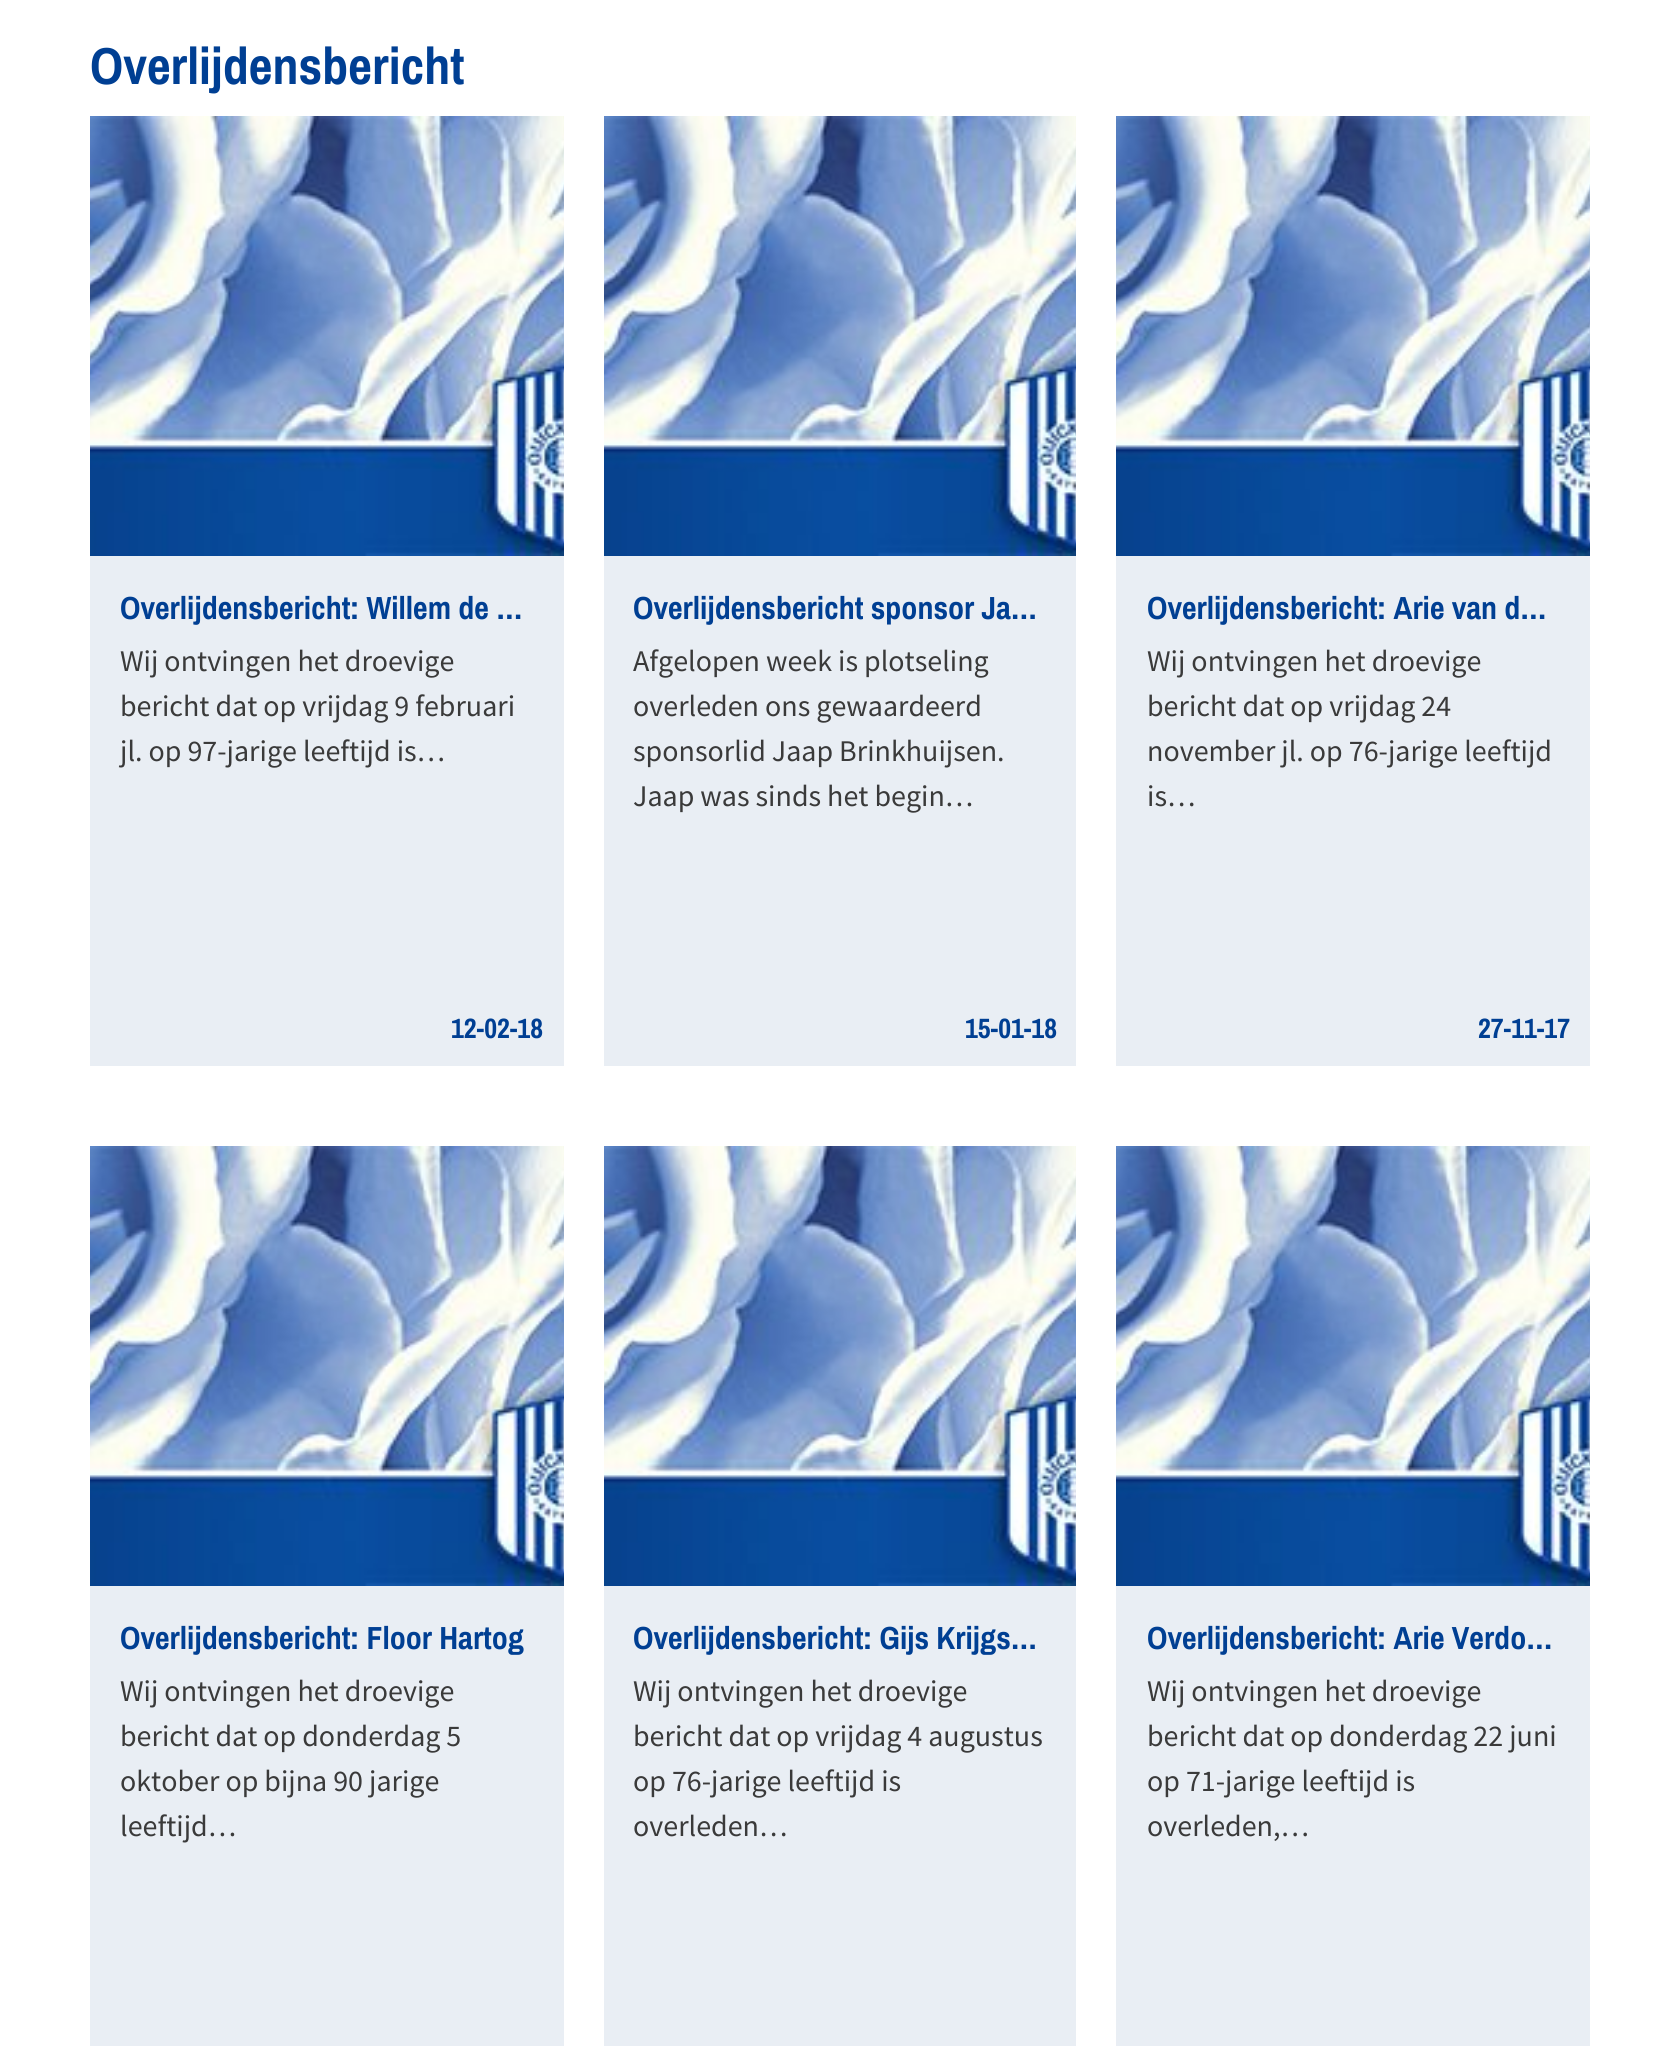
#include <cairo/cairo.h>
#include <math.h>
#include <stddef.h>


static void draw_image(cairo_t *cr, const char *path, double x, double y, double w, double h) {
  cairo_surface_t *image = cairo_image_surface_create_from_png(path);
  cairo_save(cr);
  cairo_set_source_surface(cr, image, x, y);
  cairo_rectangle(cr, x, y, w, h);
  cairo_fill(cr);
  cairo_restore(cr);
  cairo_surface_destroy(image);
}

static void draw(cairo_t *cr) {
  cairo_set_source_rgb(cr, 1, 1, 1);
  cairo_paint(cr);
  cairo_set_source_rgb(cr, 233 / 255.0, 238 / 255.0, 244 / 255.0);
  cairo_rectangle(cr, 90, 556, 474, 510);
  cairo_fill(cr);
  draw_image(cr, "images/1.png", 90, 116, 474, 440);
  cairo_rectangle(cr, 604, 556, 472, 510);
  cairo_fill(cr);
  draw_image(cr, "images/2.png", 604, 116, 472, 440);
  cairo_rectangle(cr, 1116, 556, 474, 510);
  cairo_fill(cr);
  draw_image(cr, "images/1.png", 1116, 116, 474, 440);
  cairo_rectangle(cr, 90, 1586, 474, 460);
  cairo_fill(cr);
  draw_image(cr, "images/1.png", 90, 1146, 474, 440);
  cairo_rectangle(cr, 604, 1586, 472, 460);
  cairo_fill(cr);
  draw_image(cr, "images/2.png", 604, 1146, 472, 440);
  cairo_rectangle(cr, 1116, 1586, 474, 460);
  cairo_fill(cr);
  draw_image(cr, "images/1.png", 1116, 1146, 474, 440);
  cairo_select_font_face(cr, "Archivo Narrow", CAIRO_FONT_SLANT_NORMAL, CAIRO_FONT_WEIGHT_BOLD);
  cairo_set_font_size(cr, 52);
  cairo_set_source_rgb(cr, 0, 63 / 255.0, 147 / 255.0);
  cairo_move_to(cr, 90, 84);
  cairo_show_text(cr, "Overlijdensbericht");
  cairo_set_font_size(cr, 32);
  cairo_move_to(cr, 120, 619);
  cairo_show_text(cr, "Overlijdensbericht: Willem de …");
  cairo_select_font_face(cr, "Source Sans Pro", CAIRO_FONT_SLANT_NORMAL, CAIRO_FONT_WEIGHT_NORMAL);
  cairo_set_font_size(cr, 30);
  cairo_set_source_rgb(cr, 58 / 255.0, 58 / 255.0, 58 / 255.0);
  cairo_move_to(cr, 120, 671);
  cairo_show_text(cr, "Wij ontvingen het droevige");
  cairo_move_to(cr, 120, 716);
  cairo_show_text(cr, "bericht dat op vrijdag 9 februari");
  cairo_move_to(cr, 120, 761);
  cairo_show_text(cr, "jl. op 97-jarige leeftijd is…");
  cairo_select_font_face(cr, "Archivo Narrow", CAIRO_FONT_SLANT_NORMAL, CAIRO_FONT_WEIGHT_BOLD);
  cairo_set_font_size(cr, 28);
  cairo_set_source_rgb(cr, 0, 63 / 255.0, 147 / 255.0);
  cairo_move_to(cr, 451, 1038);
  cairo_show_text(cr, "12-02-18");
  cairo_set_font_size(cr, 32);
  cairo_move_to(cr, 633, 619);
  cairo_show_text(cr, "Overlijdensbericht sponsor Ja…");
  cairo_select_font_face(cr, "Source Sans Pro", CAIRO_FONT_SLANT_NORMAL, CAIRO_FONT_WEIGHT_NORMAL);
  cairo_set_font_size(cr, 30);
  cairo_set_source_rgb(cr, 58 / 255.0, 58 / 255.0, 58 / 255.0);
  cairo_move_to(cr, 633, 671);
  cairo_show_text(cr, "Afgelopen week is plotseling");
  cairo_move_to(cr, 633, 716);
  cairo_show_text(cr, "overleden ons gewaardeerd");
  cairo_move_to(cr, 633, 761);
  cairo_show_text(cr, "sponsorlid Jaap Brinkhuijsen.");
  cairo_move_to(cr, 633, 806);
  cairo_show_text(cr, "Jaap was sinds het begin…");
  cairo_select_font_face(cr, "Archivo Narrow", CAIRO_FONT_SLANT_NORMAL, CAIRO_FONT_WEIGHT_BOLD);
  cairo_set_font_size(cr, 28);
  cairo_set_source_rgb(cr, 0, 63 / 255.0, 147 / 255.0);
  cairo_move_to(cr, 965, 1038);
  cairo_show_text(cr, "15-01-18");
  cairo_set_font_size(cr, 32);
  cairo_move_to(cr, 1147, 619);
  cairo_show_text(cr, "Overlijdensbericht: Arie van d…");
  cairo_select_font_face(cr, "Source Sans Pro", CAIRO_FONT_SLANT_NORMAL, CAIRO_FONT_WEIGHT_NORMAL);
  cairo_set_font_size(cr, 30);
  cairo_set_source_rgb(cr, 58 / 255.0, 58 / 255.0, 58 / 255.0);
  cairo_move_to(cr, 1147, 671);
  cairo_show_text(cr, "Wij ontvingen het droevige");
  cairo_move_to(cr, 1147, 716);
  cairo_show_text(cr, "bericht dat op vrijdag 24");
  cairo_move_to(cr, 1147, 761);
  cairo_show_text(cr, "november jl. op 76-jarige leeftijd");
  cairo_move_to(cr, 1147, 806);
  cairo_show_text(cr, "is…");
  cairo_select_font_face(cr, "Archivo Narrow", CAIRO_FONT_SLANT_NORMAL, CAIRO_FONT_WEIGHT_BOLD);
  cairo_set_font_size(cr, 28);
  cairo_set_source_rgb(cr, 0, 63 / 255.0, 147 / 255.0);
  cairo_move_to(cr, 1478, 1038);
  cairo_show_text(cr, "27-11-17");
  cairo_set_font_size(cr, 32);
  cairo_move_to(cr, 120, 1649);
  cairo_show_text(cr, "Overlijdensbericht: Floor Hartog");
  cairo_select_font_face(cr, "Source Sans Pro", CAIRO_FONT_SLANT_NORMAL, CAIRO_FONT_WEIGHT_NORMAL);
  cairo_set_font_size(cr, 30);
  cairo_set_source_rgb(cr, 58 / 255.0, 58 / 255.0, 58 / 255.0);
  cairo_move_to(cr, 120, 1701);
  cairo_show_text(cr, "Wij ontvingen het droevige");
  cairo_move_to(cr, 120, 1746);
  cairo_show_text(cr, "bericht dat op donderdag 5");
  cairo_move_to(cr, 120, 1791);
  cairo_show_text(cr, "oktober op bijna 90 jarige");
  cairo_move_to(cr, 120, 1836);
  cairo_show_text(cr, "leeftijd…");
  cairo_select_font_face(cr, "Archivo Narrow", CAIRO_FONT_SLANT_NORMAL, CAIRO_FONT_WEIGHT_BOLD);
  cairo_set_font_size(cr, 32);
  cairo_set_source_rgb(cr, 0, 63 / 255.0, 147 / 255.0);
  cairo_move_to(cr, 633, 1649);
  cairo_show_text(cr, "Overlijdensbericht: Gijs Krijgs…");
  cairo_select_font_face(cr, "Source Sans Pro", CAIRO_FONT_SLANT_NORMAL, CAIRO_FONT_WEIGHT_NORMAL);
  cairo_set_font_size(cr, 30);
  cairo_set_source_rgb(cr, 58 / 255.0, 58 / 255.0, 58 / 255.0);
  cairo_move_to(cr, 633, 1701);
  cairo_show_text(cr, "Wij ontvingen het droevige");
  cairo_move_to(cr, 633, 1746);
  cairo_show_text(cr, "bericht dat op vrijdag 4 augustus");
  cairo_move_to(cr, 633, 1791);
  cairo_show_text(cr, "op 76-jarige leeftijd is");
  cairo_move_to(cr, 633, 1836);
  cairo_show_text(cr, "overleden…");
  cairo_select_font_face(cr, "Archivo Narrow", CAIRO_FONT_SLANT_NORMAL, CAIRO_FONT_WEIGHT_BOLD);
  cairo_set_font_size(cr, 32);
  cairo_set_source_rgb(cr, 0, 63 / 255.0, 147 / 255.0);
  cairo_move_to(cr, 1147, 1649);
  cairo_show_text(cr, "Overlijdensbericht: Arie Verdo…");
  cairo_select_font_face(cr, "Source Sans Pro", CAIRO_FONT_SLANT_NORMAL, CAIRO_FONT_WEIGHT_NORMAL);
  cairo_set_font_size(cr, 30);
  cairo_set_source_rgb(cr, 58 / 255.0, 58 / 255.0, 58 / 255.0);
  cairo_move_to(cr, 1147, 1701);
  cairo_show_text(cr, "Wij ontvingen het droevige");
  cairo_move_to(cr, 1147, 1746);
  cairo_show_text(cr, "bericht dat op donderdag 22 juni");
  cairo_move_to(cr, 1147, 1791);
  cairo_show_text(cr, "op 71-jarige leeftijd is");
  cairo_move_to(cr, 1147, 1836);
  cairo_show_text(cr, "overleden,…");
}

int main(void) {
  cairo_surface_t *surface = cairo_image_surface_create(CAIRO_FORMAT_RGB24, 1679, 2046);
  cairo_t *cr = cairo_create(surface);
  cairo_font_options_t *options = cairo_font_options_create();
  cairo_font_options_set_hint_metrics(options, CAIRO_HINT_METRICS_OFF);
  cairo_font_options_set_hint_style(options, CAIRO_HINT_STYLE_NONE);
  cairo_set_font_options(cr, options);
  cairo_set_miter_limit(cr, 4);
  draw(cr);
  cairo_surface_write_to_png(surface, "out.png");
  cairo_font_options_destroy(options);
  cairo_destroy(cr);
  cairo_surface_destroy(surface);
  return 0;
}
